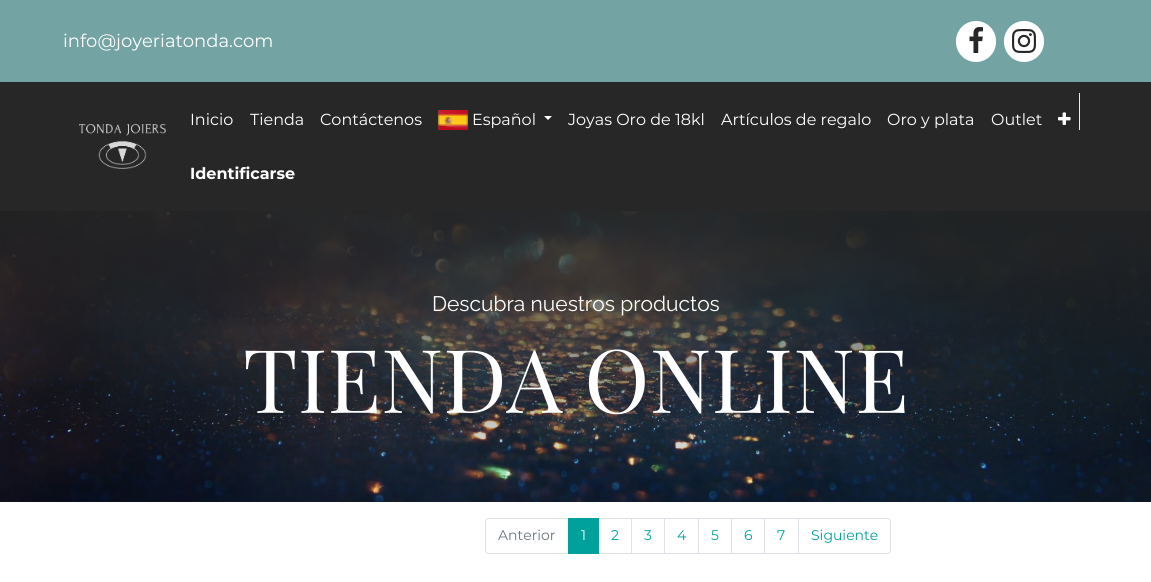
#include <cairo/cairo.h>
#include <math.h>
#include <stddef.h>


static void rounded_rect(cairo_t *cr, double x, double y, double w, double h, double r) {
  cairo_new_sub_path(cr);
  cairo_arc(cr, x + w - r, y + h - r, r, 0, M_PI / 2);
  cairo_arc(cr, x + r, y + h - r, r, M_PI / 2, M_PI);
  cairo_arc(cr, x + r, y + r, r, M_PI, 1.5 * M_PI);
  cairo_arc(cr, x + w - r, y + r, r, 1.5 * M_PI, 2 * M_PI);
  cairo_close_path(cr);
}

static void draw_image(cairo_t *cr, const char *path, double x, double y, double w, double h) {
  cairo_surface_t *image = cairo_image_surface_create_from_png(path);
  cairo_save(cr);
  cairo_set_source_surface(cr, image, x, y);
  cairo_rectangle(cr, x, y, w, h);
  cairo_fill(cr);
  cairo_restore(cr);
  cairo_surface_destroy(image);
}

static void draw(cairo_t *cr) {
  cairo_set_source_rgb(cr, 1, 1, 1);
  cairo_paint(cr);
  cairo_set_source_rgb(cr, 116 / 255.0, 163 / 255.0, 163 / 255.0);
  cairo_rectangle(cr, 0, 0, 1151, 82);
  cairo_fill(cr);
  cairo_set_source_rgb(cr, 1, 1, 1);
  rounded_rect(cr, 956, 21, 40, 41, 20);
  cairo_fill(cr);
  draw_image(cr, "images/1.png", 969, 27, 14, 26);
  rounded_rect(cr, 1004, 21, 40, 41, 20);
  cairo_fill(cr);
  draw_image(cr, "images/2.png", 1012, 29, 24, 24);
  cairo_set_source_rgb(cr, 39 / 255.0, 39 / 255.0, 39 / 255.0);
  cairo_rectangle(cr, 0, 82, 1151, 129);
  cairo_fill(cr);
  draw_image(cr, "images/3.png", 79, 124, 87, 45);
  draw_image(cr, "images/4.png", 438, 110, 30, 20);
  cairo_set_source_rgb(cr, 1, 1, 1);
  cairo_new_path(cr);
  cairo_move_to(cr, 544, 116);
  cairo_line_to(cr, 552, 116);
  cairo_line_to(cr, 548, 120);
  cairo_close_path(cr);
  cairo_fill(cr);
  draw_image(cr, "images/5.png", 1058, 112, 13, 13);
  cairo_set_source_rgb(cr, 233 / 255.0, 236 / 255.0, 239 / 255.0);
  cairo_rectangle(cr, 1079, 93, 1, 37);
  cairo_fill(cr);
  draw_image(cr, "images/6.png", 0, 211, 1151, 291);
  cairo_new_path(cr);
  cairo_move_to(cr, 489, 518.5);
  cairo_line_to(cr, 568.5, 518.5);
  cairo_line_to(cr, 568.5, 553.5);
  cairo_line_to(cr, 489, 553.5);
  cairo_curve_to(cr, 487, 553.5, 485.5, 552, 485.5, 550);
  cairo_line_to(cr, 485.5, 522);
  cairo_curve_to(cr, 485.5, 520, 487, 518.5, 489, 518.5);
  cairo_close_path(cr);
  cairo_set_source_rgb(cr, 222 / 255.0, 226 / 255.0, 230 / 255.0);
  cairo_set_line_width(cr, 1);
  cairo_stroke(cr);
  cairo_rectangle(cr, 598.5, 518.5, 33, 35);
  cairo_stroke(cr);
  cairo_set_source_rgb(cr, 0, 160 / 255.0, 157 / 255.0);
  cairo_rectangle(cr, 568, 518, 31, 36);
  cairo_fill(cr);
  cairo_rectangle(cr, 631.5, 518.5, 33, 35);
  cairo_set_source_rgb(cr, 222 / 255.0, 226 / 255.0, 230 / 255.0);
  cairo_stroke(cr);
  cairo_rectangle(cr, 664.5, 518.5, 34, 35);
  cairo_stroke(cr);
  cairo_rectangle(cr, 698.5, 518.5, 33, 35);
  cairo_stroke(cr);
  cairo_rectangle(cr, 731.5, 518.5, 33, 35);
  cairo_stroke(cr);
  cairo_rectangle(cr, 764.5, 518.5, 34, 35);
  cairo_stroke(cr);
  cairo_set_source_rgb(cr, 1, 1, 1);
  cairo_new_path(cr);
  cairo_move_to(cr, 798.5, 518.5);
  cairo_line_to(cr, 887, 518.5);
  cairo_curve_to(cr, 889, 518.5, 890.5, 520, 890.5, 522);
  cairo_line_to(cr, 890.5, 550);
  cairo_curve_to(cr, 890.5, 552, 889, 553.5, 887, 553.5);
  cairo_line_to(cr, 798.5, 553.5);
  cairo_close_path(cr);
  cairo_fill_preserve(cr);
  cairo_set_source_rgb(cr, 222 / 255.0, 226 / 255.0, 230 / 255.0);
  cairo_stroke(cr);
  cairo_select_font_face(cr, "Montserrat", CAIRO_FONT_SLANT_NORMAL, CAIRO_FONT_WEIGHT_NORMAL);
  cairo_set_font_size(cr, 18);
  cairo_set_source_rgb(cr, 1, 1, 1);
  cairo_move_to(cr, 63, 47);
  cairo_show_text(cr, "info@joyeriatonda.com");
  cairo_set_font_size(cr, 16);
  cairo_move_to(cr, 190, 125);
  cairo_show_text(cr, "Inicio");
  cairo_move_to(cr, 250, 125);
  cairo_show_text(cr, "Tienda");
  cairo_move_to(cr, 320, 125);
  cairo_show_text(cr, "Contáctenos");
  cairo_move_to(cr, 472, 125);
  cairo_show_text(cr, "Español");
  cairo_move_to(cr, 568, 125);
  cairo_show_text(cr, "Joyas Oro de 18kl");
  cairo_move_to(cr, 721, 125);
  cairo_show_text(cr, "Artículos de regalo");
  cairo_move_to(cr, 887, 125);
  cairo_show_text(cr, "Oro y plata");
  cairo_move_to(cr, 991, 125);
  cairo_show_text(cr, "Outlet");
  cairo_select_font_face(cr, "Montserrat", CAIRO_FONT_SLANT_NORMAL, CAIRO_FONT_WEIGHT_BOLD);
  cairo_move_to(cr, 190, 179);
  cairo_show_text(cr, "Identificarse");
  cairo_select_font_face(cr, "Raleway", CAIRO_FONT_SLANT_NORMAL, CAIRO_FONT_WEIGHT_NORMAL);
  cairo_set_font_size(cr, 21);
  cairo_move_to(cr, 432, 311);
  cairo_show_text(cr, "Descubra nuestros productos");
  cairo_select_font_face(cr, "Playfair Display", CAIRO_FONT_SLANT_NORMAL, CAIRO_FONT_WEIGHT_NORMAL);
  cairo_set_font_size(cr, 88);
  cairo_move_to(cr, 243, 413);
  cairo_show_text(cr, "TIENDA ONLINE");
  cairo_select_font_face(cr, "Montserrat", CAIRO_FONT_SLANT_NORMAL, CAIRO_FONT_WEIGHT_NORMAL);
  cairo_set_font_size(cr, 14);
  cairo_set_source_rgb(cr, 108 / 255.0, 117 / 255.0, 125 / 255.0);
  cairo_move_to(cr, 498, 540);
  cairo_show_text(cr, "Anterior");
  cairo_set_source_rgb(cr, 1, 1, 1);
  cairo_move_to(cr, 581, 540);
  cairo_show_text(cr, "1");
  cairo_set_source_rgb(cr, 0, 160 / 255.0, 157 / 255.0);
  cairo_move_to(cr, 611, 540);
  cairo_show_text(cr, "2");
  cairo_move_to(cr, 644, 540);
  cairo_show_text(cr, "3");
  cairo_move_to(cr, 677, 540);
  cairo_show_text(cr, "4");
  cairo_move_to(cr, 711, 540);
  cairo_show_text(cr, "5");
  cairo_move_to(cr, 744, 540);
  cairo_show_text(cr, "6");
  cairo_move_to(cr, 777, 540);
  cairo_show_text(cr, "7");
  cairo_move_to(cr, 811, 540);
  cairo_show_text(cr, "Siguiente");
}

int main(void) {
  cairo_surface_t *surface = cairo_image_surface_create(CAIRO_FORMAT_RGB24, 1151, 582);
  cairo_t *cr = cairo_create(surface);
  cairo_font_options_t *options = cairo_font_options_create();
  cairo_font_options_set_hint_metrics(options, CAIRO_HINT_METRICS_OFF);
  cairo_font_options_set_hint_style(options, CAIRO_HINT_STYLE_NONE);
  cairo_set_font_options(cr, options);
  cairo_set_miter_limit(cr, 4);
  draw(cr);
  cairo_surface_write_to_png(surface, "out.png");
  cairo_font_options_destroy(options);
  cairo_destroy(cr);
  cairo_surface_destroy(surface);
  return 0;
}
